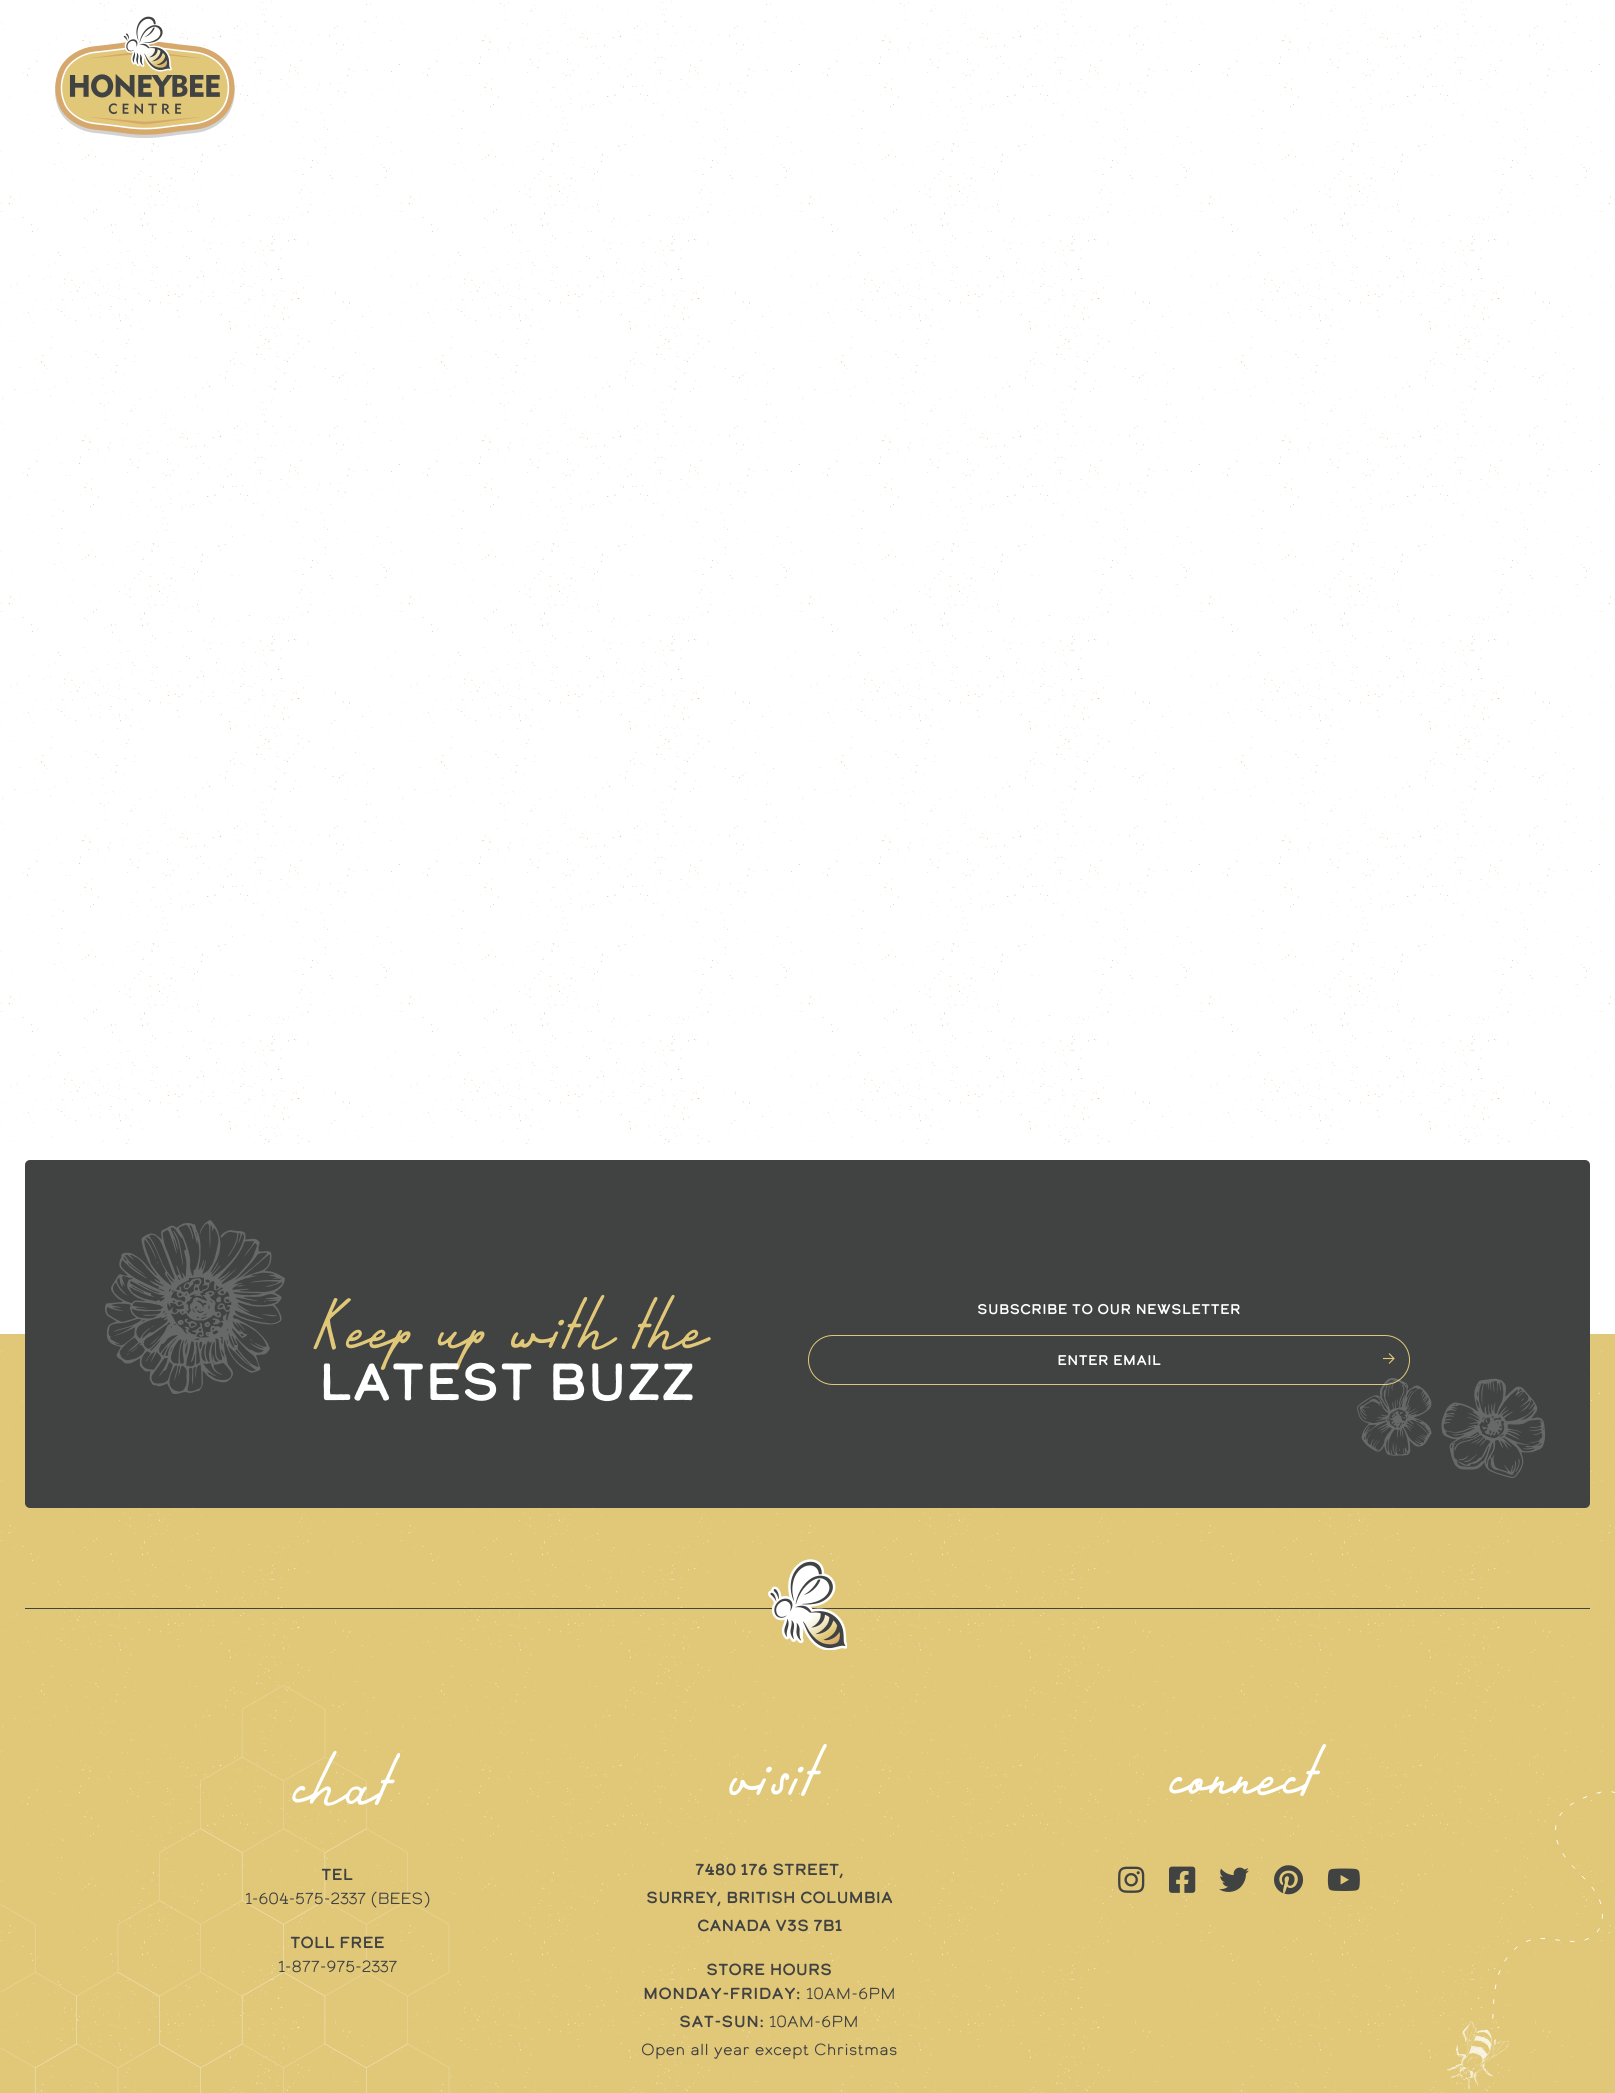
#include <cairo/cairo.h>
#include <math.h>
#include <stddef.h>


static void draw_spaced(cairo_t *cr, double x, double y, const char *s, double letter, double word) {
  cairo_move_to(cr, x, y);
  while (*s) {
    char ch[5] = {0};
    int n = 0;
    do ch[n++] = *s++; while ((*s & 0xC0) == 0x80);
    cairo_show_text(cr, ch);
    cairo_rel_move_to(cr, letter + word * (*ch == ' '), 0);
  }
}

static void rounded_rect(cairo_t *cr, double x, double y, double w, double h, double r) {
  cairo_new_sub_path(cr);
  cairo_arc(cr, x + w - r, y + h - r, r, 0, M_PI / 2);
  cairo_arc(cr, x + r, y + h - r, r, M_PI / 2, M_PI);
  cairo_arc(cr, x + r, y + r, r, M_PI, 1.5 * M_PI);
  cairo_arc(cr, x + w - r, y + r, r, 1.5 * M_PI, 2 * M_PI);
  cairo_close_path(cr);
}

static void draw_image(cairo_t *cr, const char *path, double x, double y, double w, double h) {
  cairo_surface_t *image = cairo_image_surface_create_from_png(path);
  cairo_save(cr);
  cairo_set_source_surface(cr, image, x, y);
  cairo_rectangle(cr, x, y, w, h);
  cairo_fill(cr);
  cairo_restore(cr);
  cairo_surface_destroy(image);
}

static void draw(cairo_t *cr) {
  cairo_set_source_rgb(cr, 1, 1, 1);
  cairo_paint(cr);
  draw_image(cr, "images/1.png", 0, 0, 1615, 1145);
  draw_image(cr, "images/2.png", 55, 16, 180, 122);
  cairo_new_path(cr);
  cairo_move_to(cr, 1498.5, 89.5);
  cairo_line_to(cr, 1498.5, 70.5);
  cairo_line_to(cr, 1481.5, 60.5);
  cairo_line_to(cr, 1464.5, 70.5);
  cairo_line_to(cr, 1464.5, 89.5);
  cairo_line_to(cr, 1481.5, 99.5);
  cairo_close_path(cr);
  cairo_set_source_rgb(cr, 1, 1, 1);
  cairo_set_line_width(cr, 1);
  cairo_stroke(cr);
  draw_image(cr, "images/3.png", 1519, 84, 1, 2);
  cairo_save(cr);
  cairo_rectangle(cr, 1505, 60, 35, 40);
  cairo_clip(cr);
  cairo_new_path(cr);
  cairo_move_to(cr, 1539.5, 90);
  cairo_line_to(cr, 1539.5, 70.5);
  cairo_line_to(cr, 1522.5, 60.5);
  cairo_line_to(cr, 1505.5, 70.5);
  cairo_line_to(cr, 1505.5, 90);
  cairo_line_to(cr, 1522.5, 100);
  cairo_close_path(cr);
  cairo_stroke(cr);
  cairo_restore(cr);
  cairo_set_source_rgb(cr, 225 / 255.0, 200 / 255.0, 120 / 255.0);
  cairo_rectangle(cr, 0, 1334, 1615, 759);
  cairo_fill(cr);
  draw_image(cr, "images/7.png", 0, 1685, 450, 408);
  draw_image(cr, "images/14.png", 1447, 1791, 168, 298);
  draw_image(cr, "images/6.png", 0, 1335, 1615, 758);
  cairo_set_source_rgb(cr, 65 / 255.0, 66 / 255.0, 66 / 255.0);
  rounded_rect(cr, 25, 1160, 1565, 348, 5);
  cairo_fill(cr);
  draw_image(cr, "images/4.png", 105, 1220, 180, 174);
  rounded_rect(cr, 808.5, 1335.5, 601, 49, 24.5);
  cairo_set_source_rgb(cr, 225 / 255.0, 200 / 255.0, 120 / 255.0);
  cairo_stroke(cr);
  cairo_new_path(cr);
  cairo_move_to(cr, 1383, 1358.5);
  cairo_line_to(cr, 1394, 1358.5);
  cairo_move_to(cr, 1389, 1353.5);
  cairo_line_to(cr, 1394, 1358.5);
  cairo_line_to(cr, 1389, 1363.5);
  cairo_set_line_width(cr, 1.1);
  cairo_stroke(cr);
  draw_image(cr, "images/5.png", 1357, 1378, 188, 100);
  cairo_set_source_rgb(cr, 65 / 255.0, 66 / 255.0, 66 / 255.0);
  cairo_rectangle(cr, 25, 1608, 1565, 1);
  cairo_fill(cr);
  cairo_set_source_rgb(cr, 225 / 255.0, 200 / 255.0, 120 / 255.0);
  cairo_rectangle(cr, 843, 1606, 15, 2);
  cairo_fill(cr);
  draw_image(cr, "images/8.png", 768, 1559, 79, 91);
  draw_image(cr, "images/9.png", 1118, 1866, 27, 27);
  draw_image(cr, "images/10.png", 1169, 1866, 27, 27);
  draw_image(cr, "images/11.png", 1219, 1867, 30, 25);
  draw_image(cr, "images/12.png", 1274, 1865, 30, 30);
  draw_image(cr, "images/13.png", 1327, 1868, 33, 23);
  cairo_select_font_face(cr, "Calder", CAIRO_FONT_SLANT_ITALIC, CAIRO_FONT_WEIGHT_NORMAL);
  cairo_set_font_size(cr, 70);
  cairo_move_to(cr, 310, 1348);
  cairo_show_text(cr, "Keep up with the");
  cairo_select_font_face(cr, "Calder", CAIRO_FONT_SLANT_NORMAL, CAIRO_FONT_WEIGHT_NORMAL);
  cairo_set_font_size(cr, 52);
  cairo_set_source_rgb(cr, 1, 1, 1);
  draw_spaced(cr, 318, 1400, "Latest Buzz", -1, 0);
  cairo_set_font_size(cr, 14);
  cairo_move_to(cr, 977, 1314);
  cairo_show_text(cr, "SUBSCRIBE TO OUR NEWSLETTER");
  cairo_move_to(cr, 1057, 1365);
  cairo_show_text(cr, "ENTER EMAIL");
  cairo_select_font_face(cr, "Calder", CAIRO_FONT_SLANT_ITALIC, CAIRO_FONT_WEIGHT_NORMAL);
  cairo_set_font_size(cr, 70);
  cairo_move_to(cr, 287, 1804);
  cairo_show_text(cr, "chat");
  cairo_select_font_face(cr, "Calder", CAIRO_FONT_SLANT_NORMAL, CAIRO_FONT_WEIGHT_NORMAL);
  cairo_set_font_size(cr, 16);
  cairo_set_source_rgb(cr, 65 / 255.0, 66 / 255.0, 66 / 255.0);
  draw_spaced(cr, 321, 1880, "TEL", -0.3, 0);
  cairo_select_font_face(cr, "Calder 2", CAIRO_FONT_SLANT_NORMAL, CAIRO_FONT_WEIGHT_NORMAL);
  draw_spaced(cr, 245, 1904, "1-604-575-2337 (BEES)", -0.3, 0);
  cairo_select_font_face(cr, "Calder", CAIRO_FONT_SLANT_NORMAL, CAIRO_FONT_WEIGHT_NORMAL);
  draw_spaced(cr, 290, 1948, "TOLL FREE", -0.3, 0);
  cairo_select_font_face(cr, "Calder 2", CAIRO_FONT_SLANT_NORMAL, CAIRO_FONT_WEIGHT_NORMAL);
  draw_spaced(cr, 278, 1972, "1-877-975-2337", -0.3, 0);
  cairo_select_font_face(cr, "Calder", CAIRO_FONT_SLANT_ITALIC, CAIRO_FONT_WEIGHT_NORMAL);
  cairo_set_font_size(cr, 70);
  cairo_set_source_rgb(cr, 1, 1, 1);
  cairo_move_to(cr, 724, 1795);
  cairo_show_text(cr, "visit");
  cairo_select_font_face(cr, "Calder", CAIRO_FONT_SLANT_NORMAL, CAIRO_FONT_WEIGHT_NORMAL);
  cairo_set_font_size(cr, 16);
  cairo_set_source_rgb(cr, 65 / 255.0, 66 / 255.0, 66 / 255.0);
  draw_spaced(cr, 695, 1875, "7480 176 Street,", -0.3, 0);
  draw_spaced(cr, 646, 1903, "Surrey, British Columbia", -0.3, 0);
  draw_spaced(cr, 697, 1931, "Canada V3S 7B1", -0.3, 0);
  draw_spaced(cr, 706, 1975, "STORE HOURS", -0.3, 0);
  cairo_move_to(cr, 643, 1999);
  cairo_show_text(cr, "Monday-Friday:");
  cairo_select_font_face(cr, "Calder 2", CAIRO_FONT_SLANT_NORMAL, CAIRO_FONT_WEIGHT_NORMAL);
  cairo_move_to(cr, 806, 1999);
  cairo_show_text(cr, "10AM-6PM");
  cairo_select_font_face(cr, "Calder", CAIRO_FONT_SLANT_NORMAL, CAIRO_FONT_WEIGHT_NORMAL);
  cairo_move_to(cr, 679, 2027);
  cairo_show_text(cr, "Sat-Sun:");
  cairo_select_font_face(cr, "Calder 2", CAIRO_FONT_SLANT_NORMAL, CAIRO_FONT_WEIGHT_NORMAL);
  cairo_move_to(cr, 769, 2027);
  cairo_show_text(cr, "10AM-6PM");
  cairo_move_to(cr, 641, 2055);
  cairo_show_text(cr, "Open all year except Christmas");
  cairo_select_font_face(cr, "Calder", CAIRO_FONT_SLANT_ITALIC, CAIRO_FONT_WEIGHT_NORMAL);
  cairo_set_font_size(cr, 70);
  cairo_set_source_rgb(cr, 1, 1, 1);
  cairo_move_to(cr, 1164, 1795);
  cairo_show_text(cr, "connect");
}

int main(void) {
  cairo_surface_t *surface = cairo_image_surface_create(CAIRO_FORMAT_RGB24, 1615, 2093);
  cairo_t *cr = cairo_create(surface);
  cairo_font_options_t *options = cairo_font_options_create();
  cairo_font_options_set_hint_metrics(options, CAIRO_HINT_METRICS_OFF);
  cairo_font_options_set_hint_style(options, CAIRO_HINT_STYLE_NONE);
  cairo_set_font_options(cr, options);
  cairo_set_miter_limit(cr, 4);
  draw(cr);
  cairo_surface_write_to_png(surface, "out.png");
  cairo_font_options_destroy(options);
  cairo_destroy(cr);
  cairo_surface_destroy(surface);
  return 0;
}
